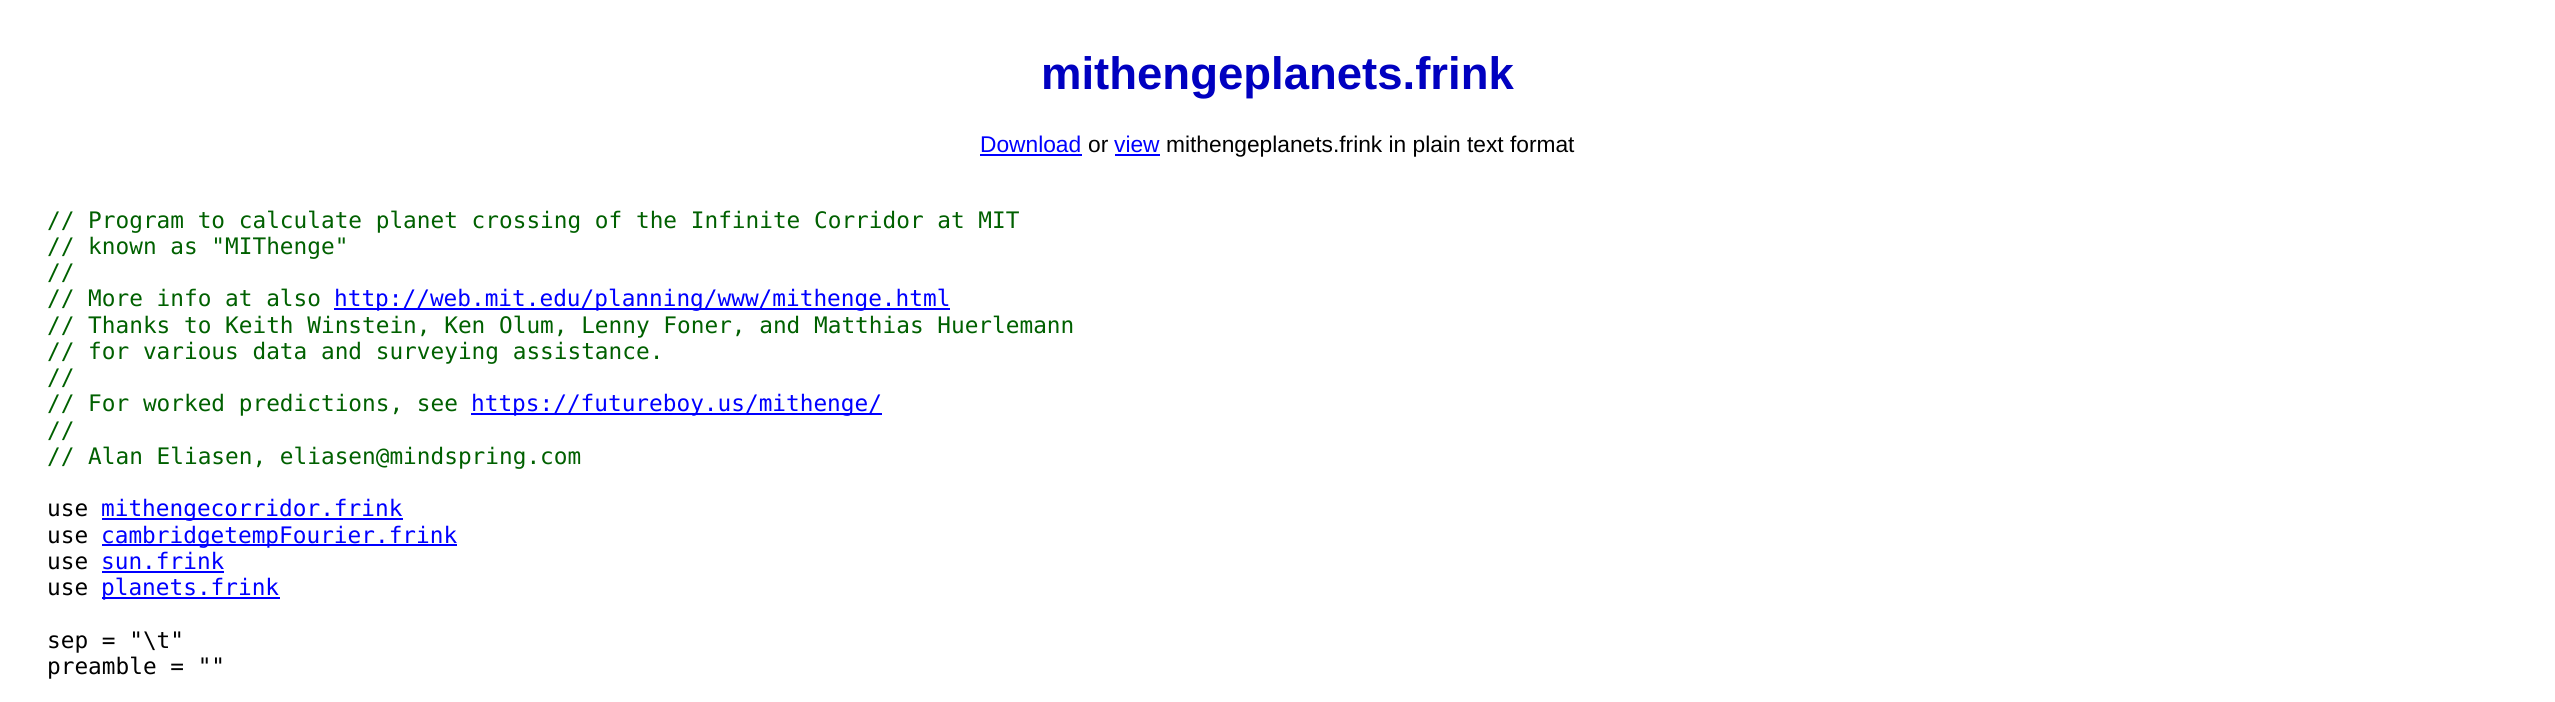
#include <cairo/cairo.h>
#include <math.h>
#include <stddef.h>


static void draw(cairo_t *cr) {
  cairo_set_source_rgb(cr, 1, 1, 1);
  cairo_paint(cr);
  cairo_set_source_rgb(cr, 0, 0, 1);
  cairo_rectangle(cr, 980, 154, 102, 2);
  cairo_fill(cr);
  cairo_rectangle(cr, 1115, 154, 45, 2);
  cairo_fill(cr);
  cairo_rectangle(cr, 334, 308, 616, 2);
  cairo_fill(cr);
  cairo_rectangle(cr, 471, 413, 411, 2);
  cairo_fill(cr);
  cairo_rectangle(cr, 102, 518, 301, 2);
  cairo_fill(cr);
  cairo_rectangle(cr, 102, 544, 355, 2);
  cairo_fill(cr);
  cairo_rectangle(cr, 102, 571, 122, 2);
  cairo_fill(cr);
  cairo_rectangle(cr, 102, 597, 178, 2);
  cairo_fill(cr);
  cairo_select_font_face(cr, "Liberation Sans", CAIRO_FONT_SLANT_NORMAL, CAIRO_FONT_WEIGHT_BOLD);
  cairo_set_font_size(cr, 45.5);
  cairo_set_source_rgb(cr, 0, 0, 192 / 255.0);
  cairo_move_to(cr, 1041, 89);
  cairo_show_text(cr, "mithengeplanets.frink");
  cairo_select_font_face(cr, "Liberation Sans", CAIRO_FONT_SLANT_NORMAL, CAIRO_FONT_WEIGHT_NORMAL);
  cairo_set_font_size(cr, 22.75);
  cairo_set_source_rgb(cr, 0, 0, 1);
  cairo_move_to(cr, 980, 152);
  cairo_show_text(cr, "Download");
  cairo_set_source_rgb(cr, 0, 0, 0);
  cairo_move_to(cr, 1088, 152);
  cairo_show_text(cr, "or");
  cairo_set_source_rgb(cr, 0, 0, 1);
  cairo_move_to(cr, 1114, 152);
  cairo_show_text(cr, "view");
  cairo_set_source_rgb(cr, 0, 0, 0);
  cairo_move_to(cr, 1166, 152);
  cairo_show_text(cr, "mithengeplanets.frink in plain text format");
  cairo_select_font_face(cr, "DejaVu Sans Mono", CAIRO_FONT_SLANT_NORMAL, CAIRO_FONT_WEIGHT_NORMAL);
  cairo_set_source_rgb(cr, 0, 96 / 255.0, 0);
  cairo_move_to(cr, 47, 228);
  cairo_show_text(cr, "// Program to calculate planet crossing of the Infinite Corridor at MIT");
  cairo_move_to(cr, 47, 254);
  cairo_show_text(cr, "// known as \"MIThenge\"");
  cairo_move_to(cr, 47, 280);
  cairo_show_text(cr, "//");
  cairo_move_to(cr, 47, 306);
  cairo_show_text(cr, "// More info at also");
  cairo_set_source_rgb(cr, 0, 0, 1);
  cairo_move_to(cr, 334, 306);
  cairo_show_text(cr, "http://web.mit.edu/planning/www/mithenge.html");
  cairo_set_source_rgb(cr, 0, 96 / 255.0, 0);
  cairo_move_to(cr, 47, 333);
  cairo_show_text(cr, "// Thanks to Keith Winstein, Ken Olum, Lenny Foner, and Matthias Huerlemann");
  cairo_move_to(cr, 47, 359);
  cairo_show_text(cr, "// for various data and surveying assistance.");
  cairo_move_to(cr, 47, 385);
  cairo_show_text(cr, "//");
  cairo_move_to(cr, 47, 411);
  cairo_show_text(cr, "// For worked predictions, see");
  cairo_set_source_rgb(cr, 0, 0, 1);
  cairo_move_to(cr, 471, 411);
  cairo_show_text(cr, "https://futureboy.us/mithenge/");
  cairo_set_source_rgb(cr, 0, 96 / 255.0, 0);
  cairo_move_to(cr, 47, 438);
  cairo_show_text(cr, "//");
  cairo_move_to(cr, 47, 464);
  cairo_show_text(cr, "// Alan Eliasen, eliasen@mindspring.com");
  cairo_set_source_rgb(cr, 0, 0, 0);
  cairo_move_to(cr, 47, 516);
  cairo_show_text(cr, "use");
  cairo_set_source_rgb(cr, 0, 0, 1);
  cairo_move_to(cr, 101, 516);
  cairo_show_text(cr, "mithengecorridor.frink");
  cairo_set_source_rgb(cr, 0, 0, 0);
  cairo_move_to(cr, 47, 543);
  cairo_show_text(cr, "use");
  cairo_set_source_rgb(cr, 0, 0, 1);
  cairo_move_to(cr, 101, 543);
  cairo_show_text(cr, "cambridgetempFourier.frink");
  cairo_set_source_rgb(cr, 0, 0, 0);
  cairo_move_to(cr, 47, 569);
  cairo_show_text(cr, "use");
  cairo_set_source_rgb(cr, 0, 0, 1);
  cairo_move_to(cr, 101, 569);
  cairo_show_text(cr, "sun.frink");
  cairo_set_source_rgb(cr, 0, 0, 0);
  cairo_move_to(cr, 47, 595);
  cairo_show_text(cr, "use");
  cairo_set_source_rgb(cr, 0, 0, 1);
  cairo_move_to(cr, 101, 595);
  cairo_show_text(cr, "planets.frink");
  cairo_set_source_rgb(cr, 0, 0, 0);
  cairo_move_to(cr, 47, 648);
  cairo_show_text(cr, "sep = \"\\t\"");
  cairo_move_to(cr, 47, 674);
  cairo_show_text(cr, "preamble = \"\"");
}

int main(void) {
  cairo_surface_t *surface = cairo_image_surface_create(CAIRO_FORMAT_RGB24, 2555, 702);
  cairo_t *cr = cairo_create(surface);
  cairo_font_options_t *options = cairo_font_options_create();
  cairo_font_options_set_hint_metrics(options, CAIRO_HINT_METRICS_OFF);
  cairo_font_options_set_hint_style(options, CAIRO_HINT_STYLE_NONE);
  cairo_set_font_options(cr, options);
  cairo_set_miter_limit(cr, 4);
  draw(cr);
  cairo_surface_write_to_png(surface, "out.png");
  cairo_font_options_destroy(options);
  cairo_destroy(cr);
  cairo_surface_destroy(surface);
  return 0;
}
